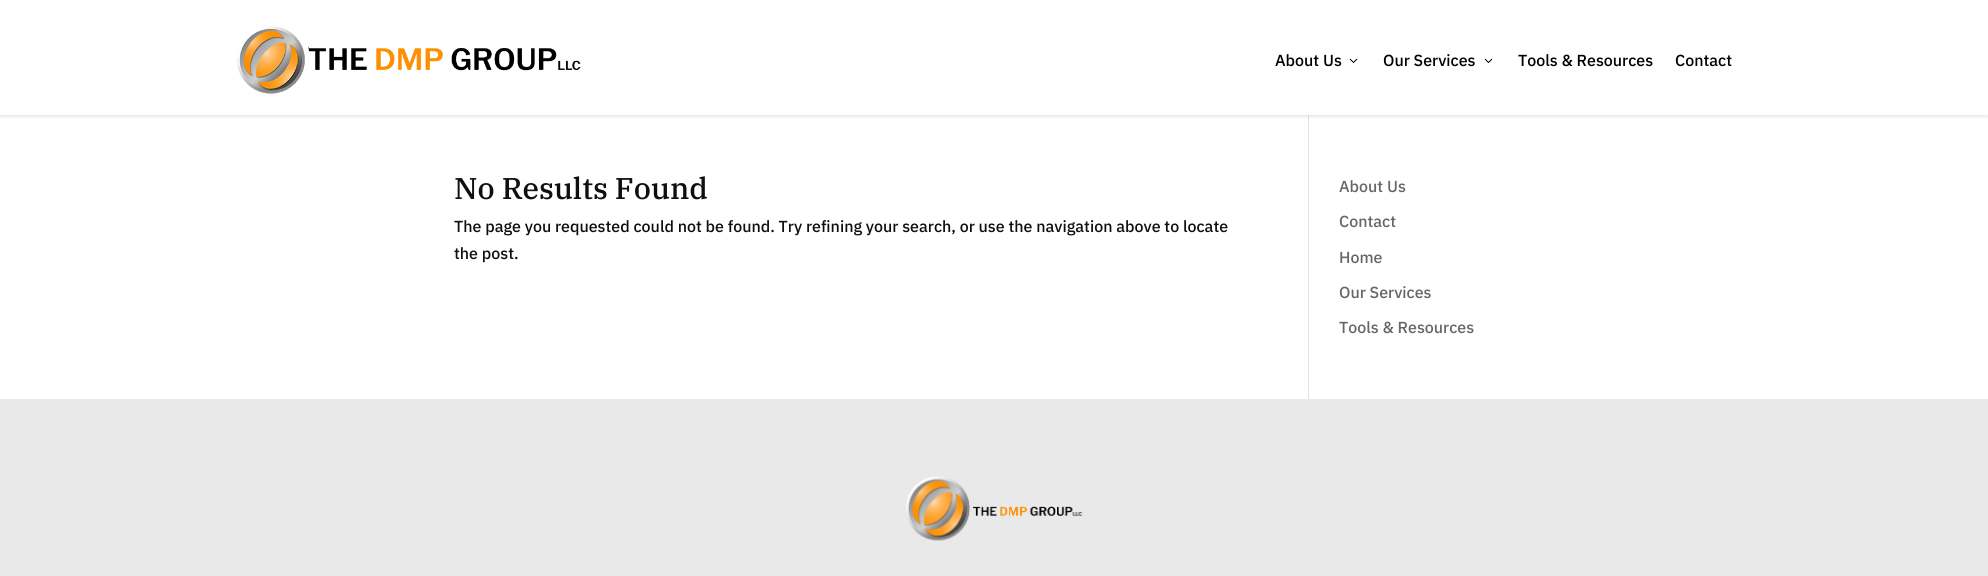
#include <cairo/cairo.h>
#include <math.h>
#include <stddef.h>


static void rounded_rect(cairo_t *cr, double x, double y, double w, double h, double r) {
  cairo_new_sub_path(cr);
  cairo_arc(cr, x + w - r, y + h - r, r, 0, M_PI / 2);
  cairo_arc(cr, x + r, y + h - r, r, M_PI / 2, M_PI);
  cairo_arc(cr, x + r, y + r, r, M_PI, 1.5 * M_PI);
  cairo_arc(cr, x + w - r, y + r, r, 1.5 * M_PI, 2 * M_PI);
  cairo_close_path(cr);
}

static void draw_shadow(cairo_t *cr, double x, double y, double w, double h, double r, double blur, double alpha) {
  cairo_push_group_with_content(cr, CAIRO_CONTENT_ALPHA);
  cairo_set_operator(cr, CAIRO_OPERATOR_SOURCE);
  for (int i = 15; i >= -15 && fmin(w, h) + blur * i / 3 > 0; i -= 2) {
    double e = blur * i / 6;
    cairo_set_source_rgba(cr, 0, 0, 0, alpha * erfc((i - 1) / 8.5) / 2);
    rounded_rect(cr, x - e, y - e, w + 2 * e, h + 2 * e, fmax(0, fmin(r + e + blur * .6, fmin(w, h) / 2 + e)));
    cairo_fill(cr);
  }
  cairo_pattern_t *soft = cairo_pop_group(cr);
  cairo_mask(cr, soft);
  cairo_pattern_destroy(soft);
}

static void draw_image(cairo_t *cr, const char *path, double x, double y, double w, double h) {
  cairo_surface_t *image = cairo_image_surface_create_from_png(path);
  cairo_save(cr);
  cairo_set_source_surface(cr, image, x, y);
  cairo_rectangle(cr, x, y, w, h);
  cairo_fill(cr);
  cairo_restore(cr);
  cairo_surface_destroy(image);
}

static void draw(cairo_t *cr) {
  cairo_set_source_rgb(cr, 1, 1, 1);
  cairo_paint(cr);
  cairo_set_source_rgb(cr, 226 / 255.0, 226 / 255.0, 226 / 255.0);
  cairo_rectangle(cr, 1308, 115, 1, 284);
  cairo_fill(cr);
  cairo_save(cr);
  cairo_rectangle(cr, 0, 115, 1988, 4);
  cairo_clip(cr);
  cairo_set_source_rgb(cr, 81 / 255.0, 88 / 255.0, 115 / 255.0);
  draw_shadow(cr, 0, 2, 1988, 115, 0, 1.5, 0.14);
  cairo_restore(cr);
  draw_image(cr, "images/1.png", 236, 26, 345, 68);
  draw_image(cr, "images/2.png", 1349, 58, 9, 5);
  draw_image(cr, "images/2.png", 1484, 58, 9, 5);
  cairo_set_source_rgb(cr, 233 / 255.0, 233 / 255.0, 233 / 255.0);
  cairo_rectangle(cr, 0, 399, 1988, 177);
  cairo_fill(cr);
  draw_image(cr, "images/3.png", 906, 476, 177, 65);
  cairo_select_font_face(cr, "IBM Plex Sans Medium", CAIRO_FONT_SLANT_NORMAL, CAIRO_FONT_WEIGHT_NORMAL);
  cairo_set_font_size(cr, 16);
  cairo_set_source_rgb(cr, 0, 0, 0);
  cairo_move_to(cr, 1275, 66);
  cairo_show_text(cr, "About Us");
  cairo_move_to(cr, 1383, 66);
  cairo_show_text(cr, "Our Services");
  cairo_move_to(cr, 1518, 66);
  cairo_show_text(cr, "Tools & Resources");
  cairo_move_to(cr, 1675, 66);
  cairo_show_text(cr, "Contact");
  cairo_select_font_face(cr, "IBM Plex Serif Medium", CAIRO_FONT_SLANT_NORMAL, CAIRO_FONT_WEIGHT_NORMAL);
  cairo_set_font_size(cr, 30);
  cairo_set_source_rgb(cr, 15 / 255.0, 15 / 255.0, 15 / 255.0);
  cairo_move_to(cr, 454, 199);
  cairo_show_text(cr, "No Results Found");
  cairo_select_font_face(cr, "IBM Plex Sans Medium", CAIRO_FONT_SLANT_NORMAL, CAIRO_FONT_WEIGHT_NORMAL);
  cairo_set_font_size(cr, 16);
  cairo_move_to(cr, 454, 232);
  cairo_show_text(cr, "The page you requested could not be found. Try refining your search, or use the navigation above to locate");
  cairo_move_to(cr, 454, 259);
  cairo_show_text(cr, "the post.");
  cairo_set_source_rgb(cr, 102 / 255.0, 102 / 255.0, 102 / 255.0);
  cairo_move_to(cr, 1339, 192);
  cairo_show_text(cr, "About Us");
  cairo_move_to(cr, 1339, 227);
  cairo_show_text(cr, "Contact");
  cairo_move_to(cr, 1339, 263);
  cairo_show_text(cr, "Home");
  cairo_move_to(cr, 1339, 298);
  cairo_show_text(cr, "Our Services");
  cairo_move_to(cr, 1339, 333);
  cairo_show_text(cr, "Tools & Resources");
}

int main(void) {
  cairo_surface_t *surface = cairo_image_surface_create(CAIRO_FORMAT_RGB24, 1988, 576);
  cairo_t *cr = cairo_create(surface);
  cairo_font_options_t *options = cairo_font_options_create();
  cairo_font_options_set_hint_metrics(options, CAIRO_HINT_METRICS_OFF);
  cairo_font_options_set_hint_style(options, CAIRO_HINT_STYLE_NONE);
  cairo_set_font_options(cr, options);
  cairo_set_miter_limit(cr, 4);
  draw(cr);
  cairo_surface_write_to_png(surface, "out.png");
  cairo_font_options_destroy(options);
  cairo_destroy(cr);
  cairo_surface_destroy(surface);
  return 0;
}
